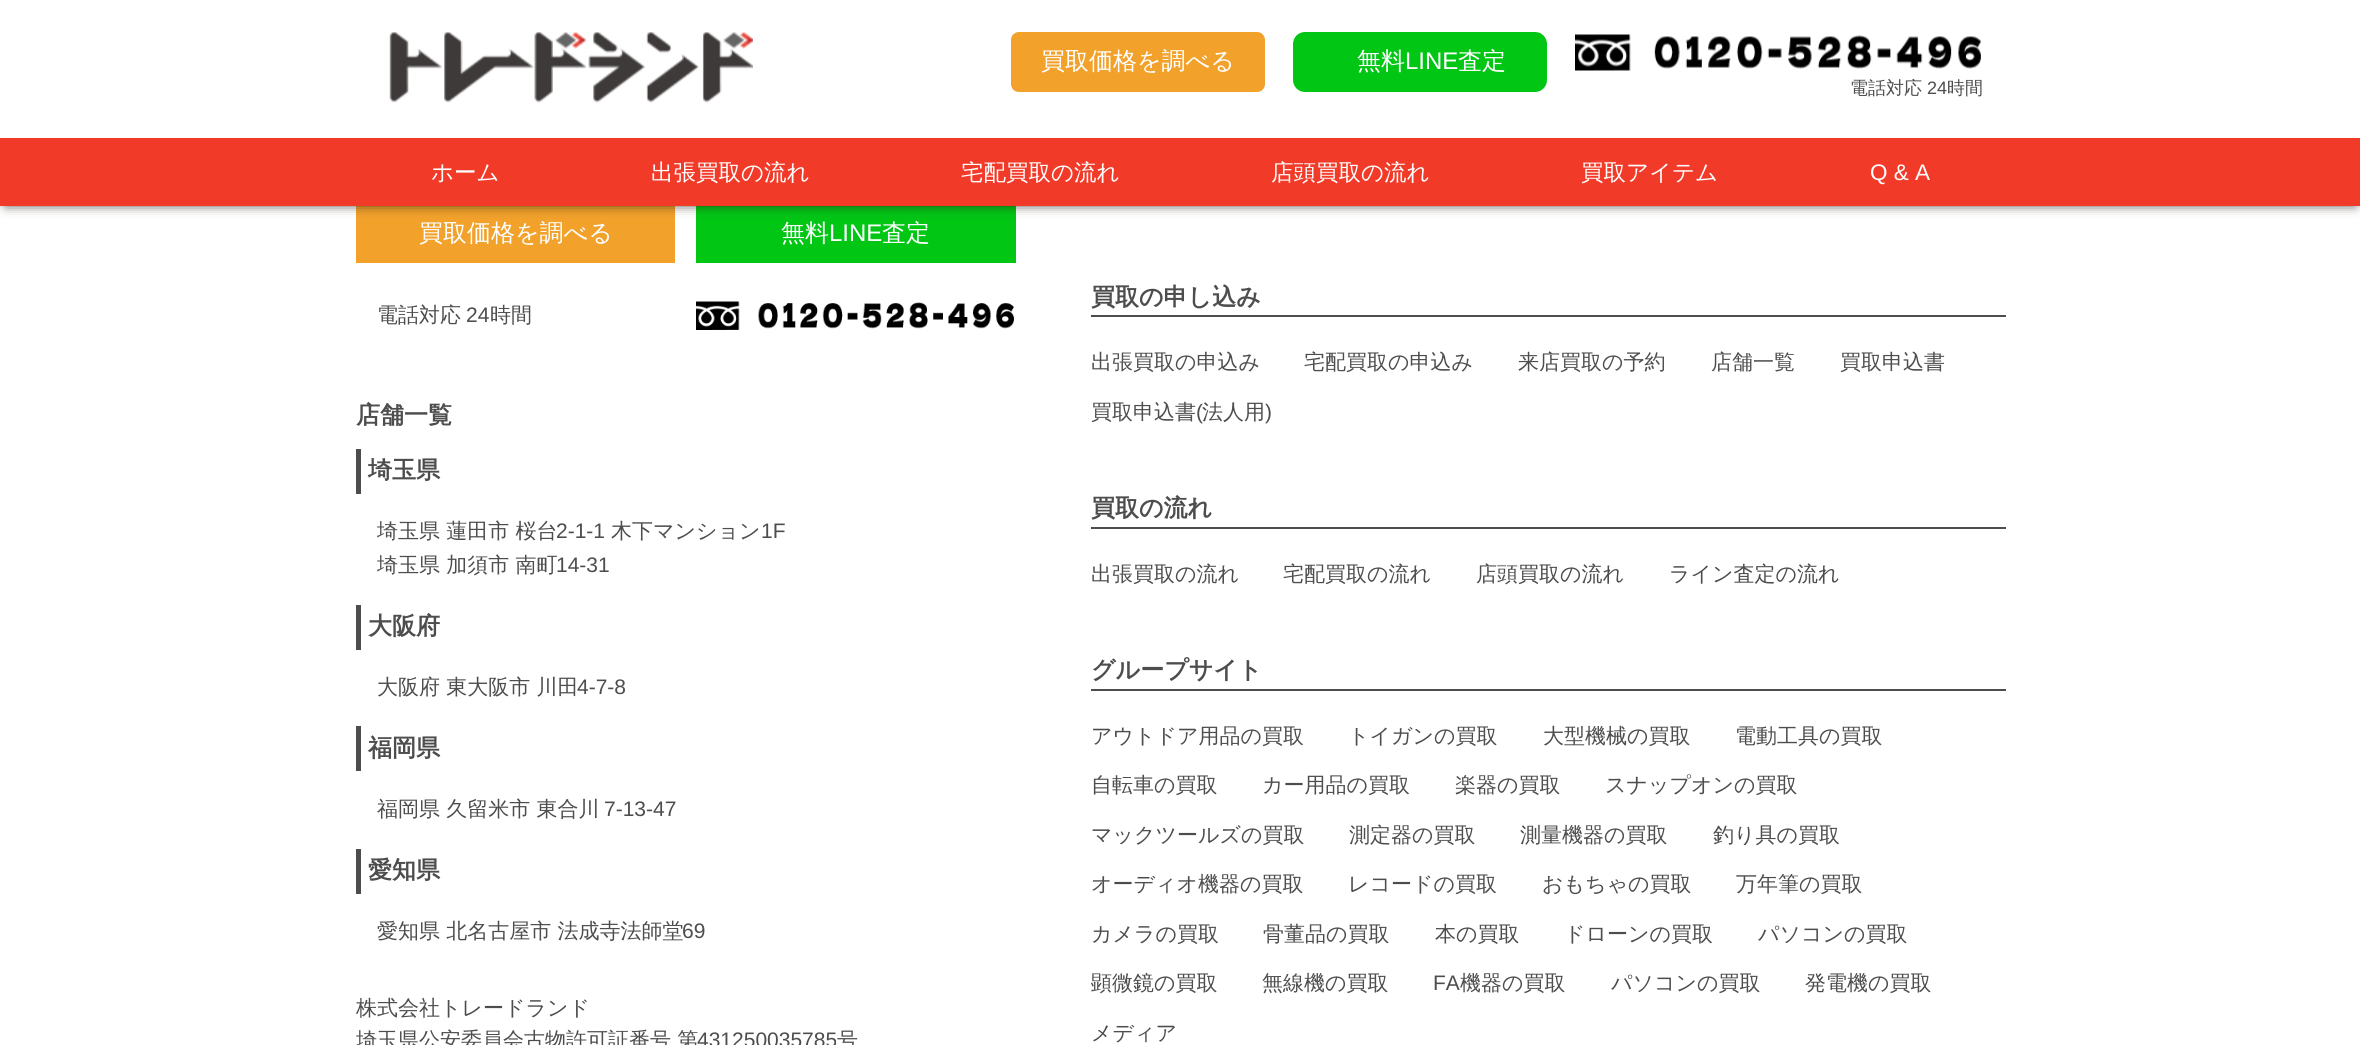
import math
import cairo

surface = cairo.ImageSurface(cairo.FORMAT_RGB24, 2360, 1045)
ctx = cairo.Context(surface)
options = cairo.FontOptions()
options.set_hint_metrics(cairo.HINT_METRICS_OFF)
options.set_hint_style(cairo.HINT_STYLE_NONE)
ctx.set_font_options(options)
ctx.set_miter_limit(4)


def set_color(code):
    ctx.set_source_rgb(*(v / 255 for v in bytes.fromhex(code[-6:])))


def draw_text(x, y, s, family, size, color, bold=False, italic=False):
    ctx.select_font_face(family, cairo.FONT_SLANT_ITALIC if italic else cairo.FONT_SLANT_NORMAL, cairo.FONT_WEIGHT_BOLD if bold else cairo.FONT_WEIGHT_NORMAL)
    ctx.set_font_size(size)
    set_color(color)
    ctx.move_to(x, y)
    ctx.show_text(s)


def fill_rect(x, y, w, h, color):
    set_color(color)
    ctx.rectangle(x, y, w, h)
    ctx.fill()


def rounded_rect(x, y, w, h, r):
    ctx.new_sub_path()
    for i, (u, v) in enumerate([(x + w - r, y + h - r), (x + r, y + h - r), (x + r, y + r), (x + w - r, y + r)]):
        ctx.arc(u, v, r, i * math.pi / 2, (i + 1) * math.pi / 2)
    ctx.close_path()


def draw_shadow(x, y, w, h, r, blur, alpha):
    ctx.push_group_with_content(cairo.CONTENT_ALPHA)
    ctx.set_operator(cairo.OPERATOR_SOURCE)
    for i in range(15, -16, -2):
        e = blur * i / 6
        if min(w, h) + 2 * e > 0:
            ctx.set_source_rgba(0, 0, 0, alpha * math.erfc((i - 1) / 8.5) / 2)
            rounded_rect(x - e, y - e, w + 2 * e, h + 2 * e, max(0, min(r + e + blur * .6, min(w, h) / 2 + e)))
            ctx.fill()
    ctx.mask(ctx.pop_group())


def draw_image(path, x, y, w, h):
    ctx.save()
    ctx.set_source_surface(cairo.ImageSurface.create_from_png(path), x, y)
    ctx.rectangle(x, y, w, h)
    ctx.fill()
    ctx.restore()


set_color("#ffffff")
ctx.paint()
fill_rect(356, 206, 319, 57, "#f2a12b")
fill_rect(696, 206, 320, 57, "#01c614")
set_color("#28221b")
draw_shadow(6, 11, 2349, 193, 0, 6, 1)
fill_rect(0, 0, 2360, 138, "#ffffff")
draw_image("assets/img1.png", 389, 32, 364, 71)
set_color("#f2a12b")
rounded_rect(1012, 33, 252, 58, 7)
ctx.fill_preserve()
ctx.stroke()
draw_text(1041, 69, "買取価格を調べる", "WenQuanYi Zen Hei Medium", 24, "#ffffff")
set_color("#01c614")
rounded_rect(1294, 33, 252, 58, 11)
ctx.fill_preserve()
ctx.stroke()
draw_text(1357, 69, "無料", "WenQuanYi Zen Hei Medium", 24, "#ffffff")
draw_text(1405, 69, "LINE", "Liberation Sans", 24, "#ffffff")
draw_text(1458, 69, "査定", "WenQuanYi Zen Hei Medium", 24, "#ffffff")
draw_image("assets/img2.png", 1575, 34, 406, 37)
draw_text(1850, 94, "電話対応", "WenQuanYi Zen Hei Medium", 18, "#4d4d4d")
draw_text(1927, 94, "24", "Liberation Sans", 18, "#4d4d4d")
draw_text(1947, 94, "時間", "WenQuanYi Zen Hei Medium", 18, "#4d4d4d")
fill_rect(0, 138, 2360, 68, "#f23a29")
draw_text(431, 180, "ホーム", "WenQuanYi Zen Hei Medium", 22.5, "#ffffff")
draw_text(651, 180, "出張買取の流れ", "WenQuanYi Zen Hei Medium", 22.5, "#ffffff")
draw_text(961, 180, "宅配買取の流れ", "WenQuanYi Zen Hei Medium", 22.5, "#ffffff")
draw_text(1271, 180, "店頭買取の流れ", "WenQuanYi Zen Hei Medium", 22.5, "#ffffff")
draw_text(1581, 180, "買取アイテム", "WenQuanYi Zen Hei Medium", 22.5, "#ffffff")
draw_text(1870, 180, "Q & A", "Liberation Sans", 22.5, "#ffffff")
draw_text(419, 241, "買取価格を調べる", "WenQuanYi Zen Hei Medium", 24, "#ffffff")
draw_text(781, 241, "無料", "WenQuanYi Zen Hei Medium", 24, "#ffffff")
draw_text(829, 241, "LINE", "Liberation Sans", 24, "#ffffff")
draw_text(882, 241, "査定", "WenQuanYi Zen Hei Medium", 24, "#ffffff")
draw_text(377, 322, "電話対応", "WenQuanYi Zen Hei Medium", 21, "#4d4d4d")
draw_text(466, 322, "24", "Liberation Sans", 21, "#4d4d4d")
draw_text(490, 322, "時間", "WenQuanYi Zen Hei Medium", 21, "#4d4d4d")
draw_image("assets/img3.png", 696, 301, 318, 29)
draw_text(356, 423, "店舗一覧", "WenQuanYi Zen Hei", 24, "#4d4d4d", bold=True)
fill_rect(356, 449, 5, 45, "#4d4d4d")
draw_text(368, 478, "埼玉県", "WenQuanYi Zen Hei", 24, "#4d4d4d", bold=True)
draw_text(377, 538, "埼玉県 蓮田市 桜台", "WenQuanYi Zen Hei Medium", 21, "#4d4d4d")
draw_text(556, 538, "2-1-1", "Liberation Sans", 21, "#4d4d4d")
draw_text(611, 538, "木下マンション", "WenQuanYi Zen Hei Medium", 21, "#4d4d4d")
draw_text(761, 538, "1F", "Liberation Sans", 21, "#4d4d4d")
draw_text(377, 572, "埼玉県 加須市 南町", "WenQuanYi Zen Hei Medium", 21, "#4d4d4d")
draw_text(556, 572, "14-31", "Liberation Sans", 21, "#4d4d4d")
fill_rect(356, 605, 5, 45, "#4d4d4d")
draw_text(368, 634, "大阪府", "WenQuanYi Zen Hei", 24, "#4d4d4d", bold=True)
draw_text(377, 694, "大阪府 東大阪市 川田", "WenQuanYi Zen Hei Medium", 21, "#4d4d4d")
draw_text(577, 694, "4-7-8", "Liberation Sans", 21, "#4d4d4d")
fill_rect(356, 726, 5, 45, "#4d4d4d")
draw_text(368, 756, "福岡県", "WenQuanYi Zen Hei", 24, "#4d4d4d", bold=True)
draw_text(377, 816, "福岡県 久留米市 東合川", "WenQuanYi Zen Hei Medium", 21, "#4d4d4d")
draw_text(604, 816, "7-13-47", "Liberation Sans", 21, "#4d4d4d")
fill_rect(356, 849, 5, 45, "#4d4d4d")
draw_text(368, 878, "愛知県", "WenQuanYi Zen Hei", 24, "#4d4d4d", bold=True)
draw_text(377, 938, "愛知県 北名古屋市 法成寺法師堂", "WenQuanYi Zen Hei Medium", 21, "#4d4d4d")
draw_text(682, 938, "69", "Liberation Sans", 21, "#4d4d4d")
draw_text(356, 1015, "株式会社トレードランド", "WenQuanYi Zen Hei Medium", 21, "#4d4d4d")
draw_text(356, 1047, "埼玉県公安委員会古物許可証番号 第", "WenQuanYi Zen Hei Medium", 21, "#4d4d4d")
draw_text(697, 1047, "431250035785", "Liberation Sans", 21, "#4d4d4d")
draw_text(837, 1047, "号", "WenQuanYi Zen Hei Medium", 21, "#4d4d4d")
fill_rect(1091, 315, 915, 2, "#4d4d4d")
draw_text(1091, 305, "買取の申し込み", "WenQuanYi Zen Hei", 24, "#4d4d4d", bold=True)
draw_text(1091, 369, "出張買取の申込み", "WenQuanYi Zen Hei Medium", 21, "#4d4d4d")
draw_text(1304, 369, "宅配買取の申込み", "WenQuanYi Zen Hei Medium", 21, "#4d4d4d")
draw_text(1518, 369, "来店買取の予約", "WenQuanYi Zen Hei Medium", 21, "#4d4d4d")
draw_text(1711, 369, "店舗一覧", "WenQuanYi Zen Hei Medium", 21, "#4d4d4d")
draw_text(1840, 369, "買取申込書", "WenQuanYi Zen Hei Medium", 21, "#4d4d4d")
draw_text(1091, 419, "買取申込書", "WenQuanYi Zen Hei Medium", 21, "#4d4d4d")
draw_text(1196, 419, "(", "Liberation Sans", 21, "#4d4d4d")
draw_text(1202, 419, "法人用", "WenQuanYi Zen Hei Medium", 21, "#4d4d4d")
draw_text(1265, 419, ")", "Liberation Sans", 21, "#4d4d4d")
fill_rect(1091, 527, 915, 2, "#4d4d4d")
draw_text(1091, 516, "買取の流れ", "WenQuanYi Zen Hei", 24, "#4d4d4d", bold=True)
draw_text(1091, 581, "出張買取の流れ", "WenQuanYi Zen Hei Medium", 21, "#4d4d4d")
draw_text(1283, 581, "宅配買取の流れ", "WenQuanYi Zen Hei Medium", 21, "#4d4d4d")
draw_text(1476, 581, "店頭買取の流れ", "WenQuanYi Zen Hei Medium", 21, "#4d4d4d")
draw_text(1669, 581, "ライン査定の流れ", "WenQuanYi Zen Hei Medium", 21, "#4d4d4d")
fill_rect(1091, 689, 915, 2, "#4d4d4d")
draw_text(1091, 678, "グループサイト", "WenQuanYi Zen Hei", 24, "#4d4d4d", bold=True)
draw_text(1091, 743, "アウトドア用品の買取", "WenQuanYi Zen Hei Medium", 21, "#4d4d4d")
draw_text(1348, 743, "トイガンの買取", "WenQuanYi Zen Hei Medium", 21, "#4d4d4d")
draw_text(1543, 743, "大型機械の買取", "WenQuanYi Zen Hei Medium", 21, "#4d4d4d")
draw_text(1735, 743, "電動工具の買取", "WenQuanYi Zen Hei Medium", 21, "#4d4d4d")
draw_text(1091, 792, "自転車の買取", "WenQuanYi Zen Hei Medium", 21, "#4d4d4d")
draw_text(1262, 792, "カー用品の買取", "WenQuanYi Zen Hei Medium", 21, "#4d4d4d")
draw_text(1455, 792, "楽器の買取", "WenQuanYi Zen Hei Medium", 21, "#4d4d4d")
draw_text(1605, 792, "スナップオンの買取", "WenQuanYi Zen Hei Medium", 21, "#4d4d4d")
draw_text(1091, 842, "マックツールズの買取", "WenQuanYi Zen Hei Medium", 21, "#4d4d4d")
draw_text(1349, 842, "測定器の買取", "WenQuanYi Zen Hei Medium", 21, "#4d4d4d")
draw_text(1520, 842, "測量機器の買取", "WenQuanYi Zen Hei Medium", 21, "#4d4d4d")
draw_text(1713, 842, "釣り具の買取", "WenQuanYi Zen Hei Medium", 21, "#4d4d4d")
draw_text(1091, 891, "オーディオ機器の買取", "WenQuanYi Zen Hei Medium", 21, "#4d4d4d")
draw_text(1348, 891, "レコードの買取", "WenQuanYi Zen Hei Medium", 21, "#4d4d4d")
draw_text(1542, 891, "おもちゃの買取", "WenQuanYi Zen Hei Medium", 21, "#4d4d4d")
draw_text(1736, 891, "万年筆の買取", "WenQuanYi Zen Hei Medium", 21, "#4d4d4d")
draw_text(1091, 941, "カメラの買取", "WenQuanYi Zen Hei Medium", 21, "#4d4d4d")
draw_text(1263, 941, "骨董品の買取", "WenQuanYi Zen Hei Medium", 21, "#4d4d4d")
draw_text(1435, 941, "本の買取", "WenQuanYi Zen Hei Medium", 21, "#4d4d4d")
draw_text(1564, 941, "ドローンの買取", "WenQuanYi Zen Hei Medium", 21, "#4d4d4d")
draw_text(1758, 941, "パソコンの買取", "WenQuanYi Zen Hei Medium", 21, "#4d4d4d")
draw_text(1091, 990, "顕微鏡の買取", "WenQuanYi Zen Hei Medium", 21, "#4d4d4d")
draw_text(1262, 990, "無線機の買取", "WenQuanYi Zen Hei Medium", 21, "#4d4d4d")
draw_text(1433, 990, "FA", "Liberation Sans", 21, "#4d4d4d")
draw_text(1460, 990, "機器の買取", "WenQuanYi Zen Hei Medium", 21, "#4d4d4d")
draw_text(1611, 990, "パソコンの買取", "WenQuanYi Zen Hei Medium", 21, "#4d4d4d")
draw_text(1805, 990, "発電機の買取", "WenQuanYi Zen Hei Medium", 21, "#4d4d4d")
draw_text(1091, 1040, "メディア", "WenQuanYi Zen Hei Medium", 21, "#4d4d4d")
surface.write_to_png("output.png")
